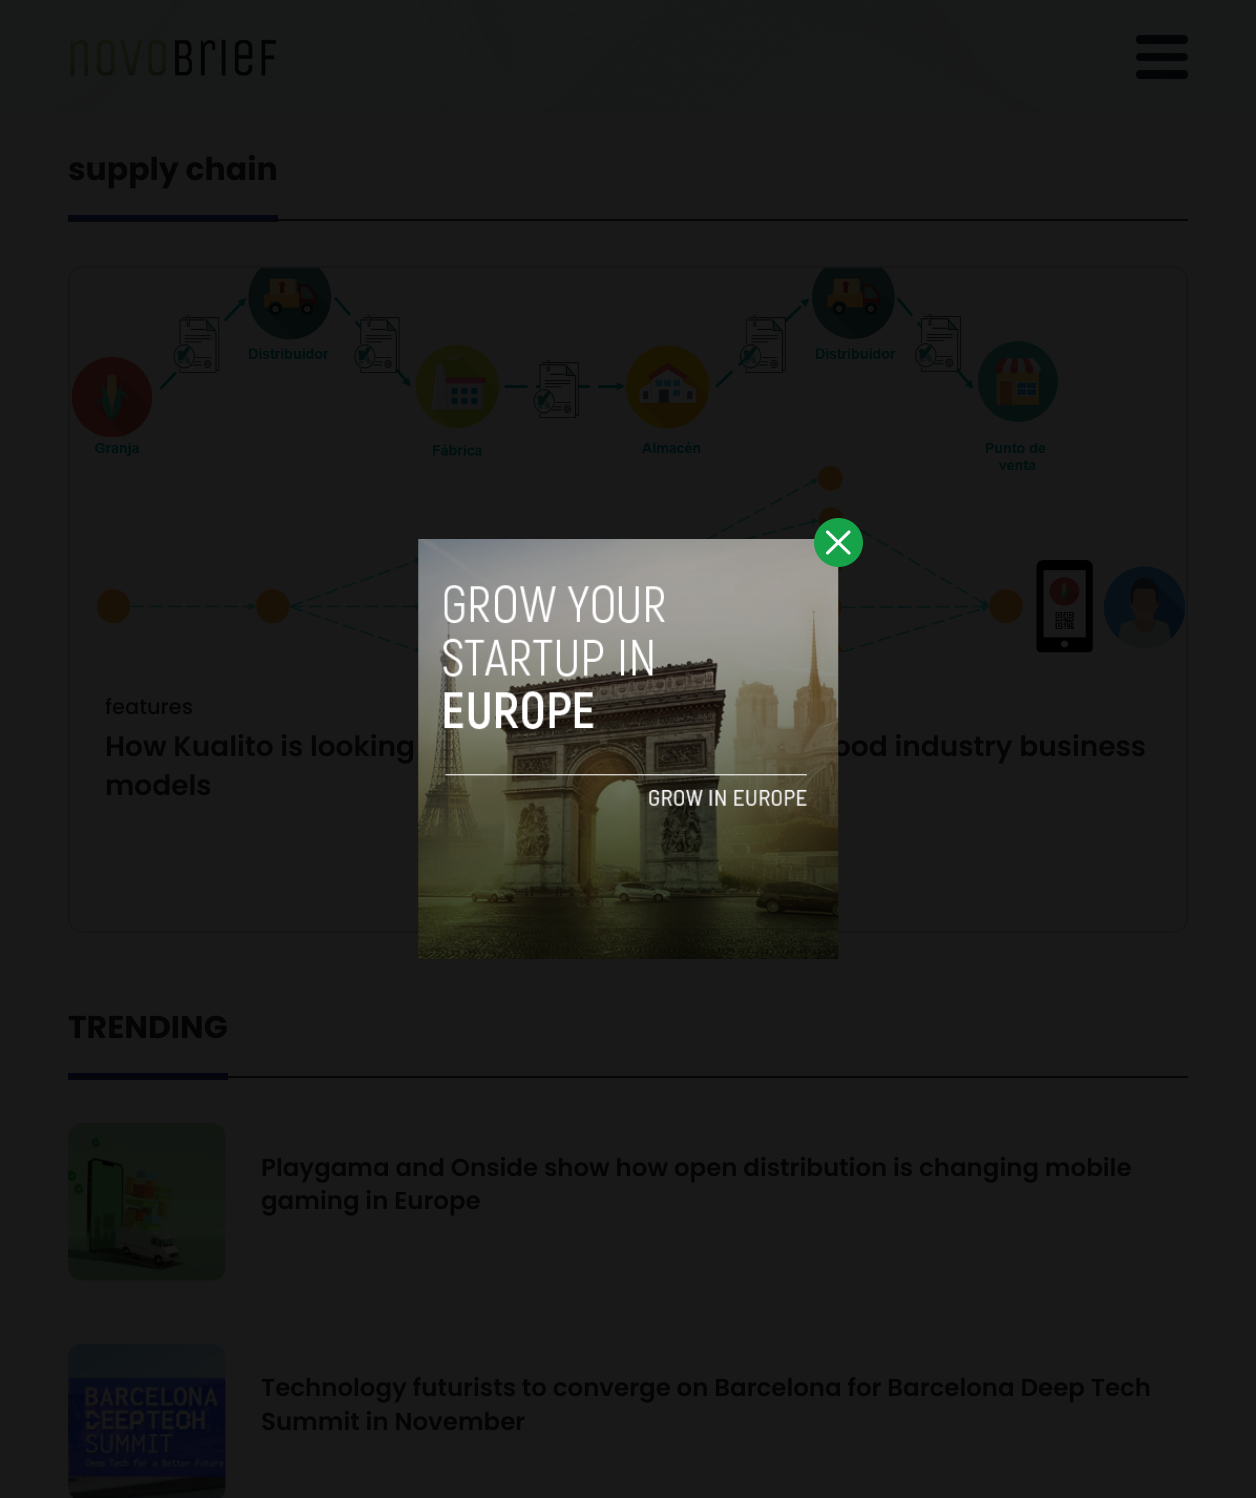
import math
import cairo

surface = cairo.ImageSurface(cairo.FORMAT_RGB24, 1256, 1498)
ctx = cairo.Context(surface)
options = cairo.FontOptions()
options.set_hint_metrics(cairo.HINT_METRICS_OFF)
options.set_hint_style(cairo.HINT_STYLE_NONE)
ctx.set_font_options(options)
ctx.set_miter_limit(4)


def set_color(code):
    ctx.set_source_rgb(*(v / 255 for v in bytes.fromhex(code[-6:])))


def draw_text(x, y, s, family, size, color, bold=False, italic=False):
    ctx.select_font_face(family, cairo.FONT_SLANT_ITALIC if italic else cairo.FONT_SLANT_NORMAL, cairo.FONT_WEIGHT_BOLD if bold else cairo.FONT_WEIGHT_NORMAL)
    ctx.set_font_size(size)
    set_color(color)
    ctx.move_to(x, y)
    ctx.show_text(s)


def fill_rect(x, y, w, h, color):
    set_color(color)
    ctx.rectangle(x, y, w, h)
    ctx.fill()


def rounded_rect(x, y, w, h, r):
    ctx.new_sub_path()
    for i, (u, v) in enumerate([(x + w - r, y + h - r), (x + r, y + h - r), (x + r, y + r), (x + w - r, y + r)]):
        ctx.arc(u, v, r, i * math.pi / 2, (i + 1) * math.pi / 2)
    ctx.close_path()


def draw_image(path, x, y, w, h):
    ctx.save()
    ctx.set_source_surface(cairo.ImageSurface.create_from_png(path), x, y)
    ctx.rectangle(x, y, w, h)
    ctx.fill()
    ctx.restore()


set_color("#191919")
ctx.paint()
draw_image("assets/img1.png", 0, 0, 1256, 114)
draw_image("assets/img2.png", 70, 39, 206, 37)
set_color("#030405")
rounded_rect(1136, 35, 52, 9, 4)
ctx.fill()
rounded_rect(1136, 53, 52, 8, 4)
ctx.fill()
rounded_rect(1136, 70, 52, 9, 4)
ctx.fill()
fill_rect(68, 215, 210, 7, "#030611")
draw_text(68, 180, "supply chain", "Poppins", 31.5, "#040404", bold=True)
fill_rect(68, 219, 1120, 2, "#060607")
rounded_rect(69, 267, 1118, 665, 13)
set_color("#151516")
ctx.stroke()
draw_image("assets/img3.png", 71, 267, 1115, 386)
draw_text(105, 714, "features", "Poppins Medium", 21, "#040404")
draw_text(105, 756, "How Kualito is looking", "Poppins SemiBold", 28, "#040404")
draw_text(833, 756, "ood industry business", "Poppins SemiBold", 28, "#040404")
draw_text(105, 795, "models", "Poppins SemiBold", 28, "#040404")
fill_rect(68, 1073, 160, 7, "#030611")
draw_text(68, 1038, "TRENDING", "Poppins", 31.5, "#040404", bold=True)
fill_rect(68, 1076, 1120, 2, "#060607")
draw_image("assets/img4.png", 68, 1123, 158, 159)
draw_text(261, 1176, "Playgama and Onside show how open distribution is changing mobile", "Poppins SemiBold", 24.5, "#040404")
draw_text(261, 1209, "gaming in Europe", "Poppins SemiBold", 24.5, "#040404")
draw_image("assets/img5.png", 68, 1343, 158, 155)
draw_text(261, 1396, "Technology futurists to converge on Barcelona for Barcelona Deep Tech", "Poppins SemiBold", 24.5, "#040404")
draw_text(261, 1430, "Summit in November", "Poppins SemiBold", 24.5, "#040404")
draw_image("assets/img6.png", 418, 539, 421, 420)
set_color("#16a34a")
ctx.arc(838.5, 542.5, 24.5, 0, 2 * math.pi)
ctx.fill()
ctx.new_path()
ctx.move_to(849, 553)
ctx.line_to(827.5, 532)
ctx.move_to(849, 532)
ctx.line_to(827.5, 553)
set_color("#ffffff")
ctx.set_line_width(3.1)
ctx.set_line_cap(cairo.LINE_CAP_ROUND)
ctx.set_line_join(cairo.LINE_JOIN_ROUND)
ctx.stroke()
surface.write_to_png("output.png")
